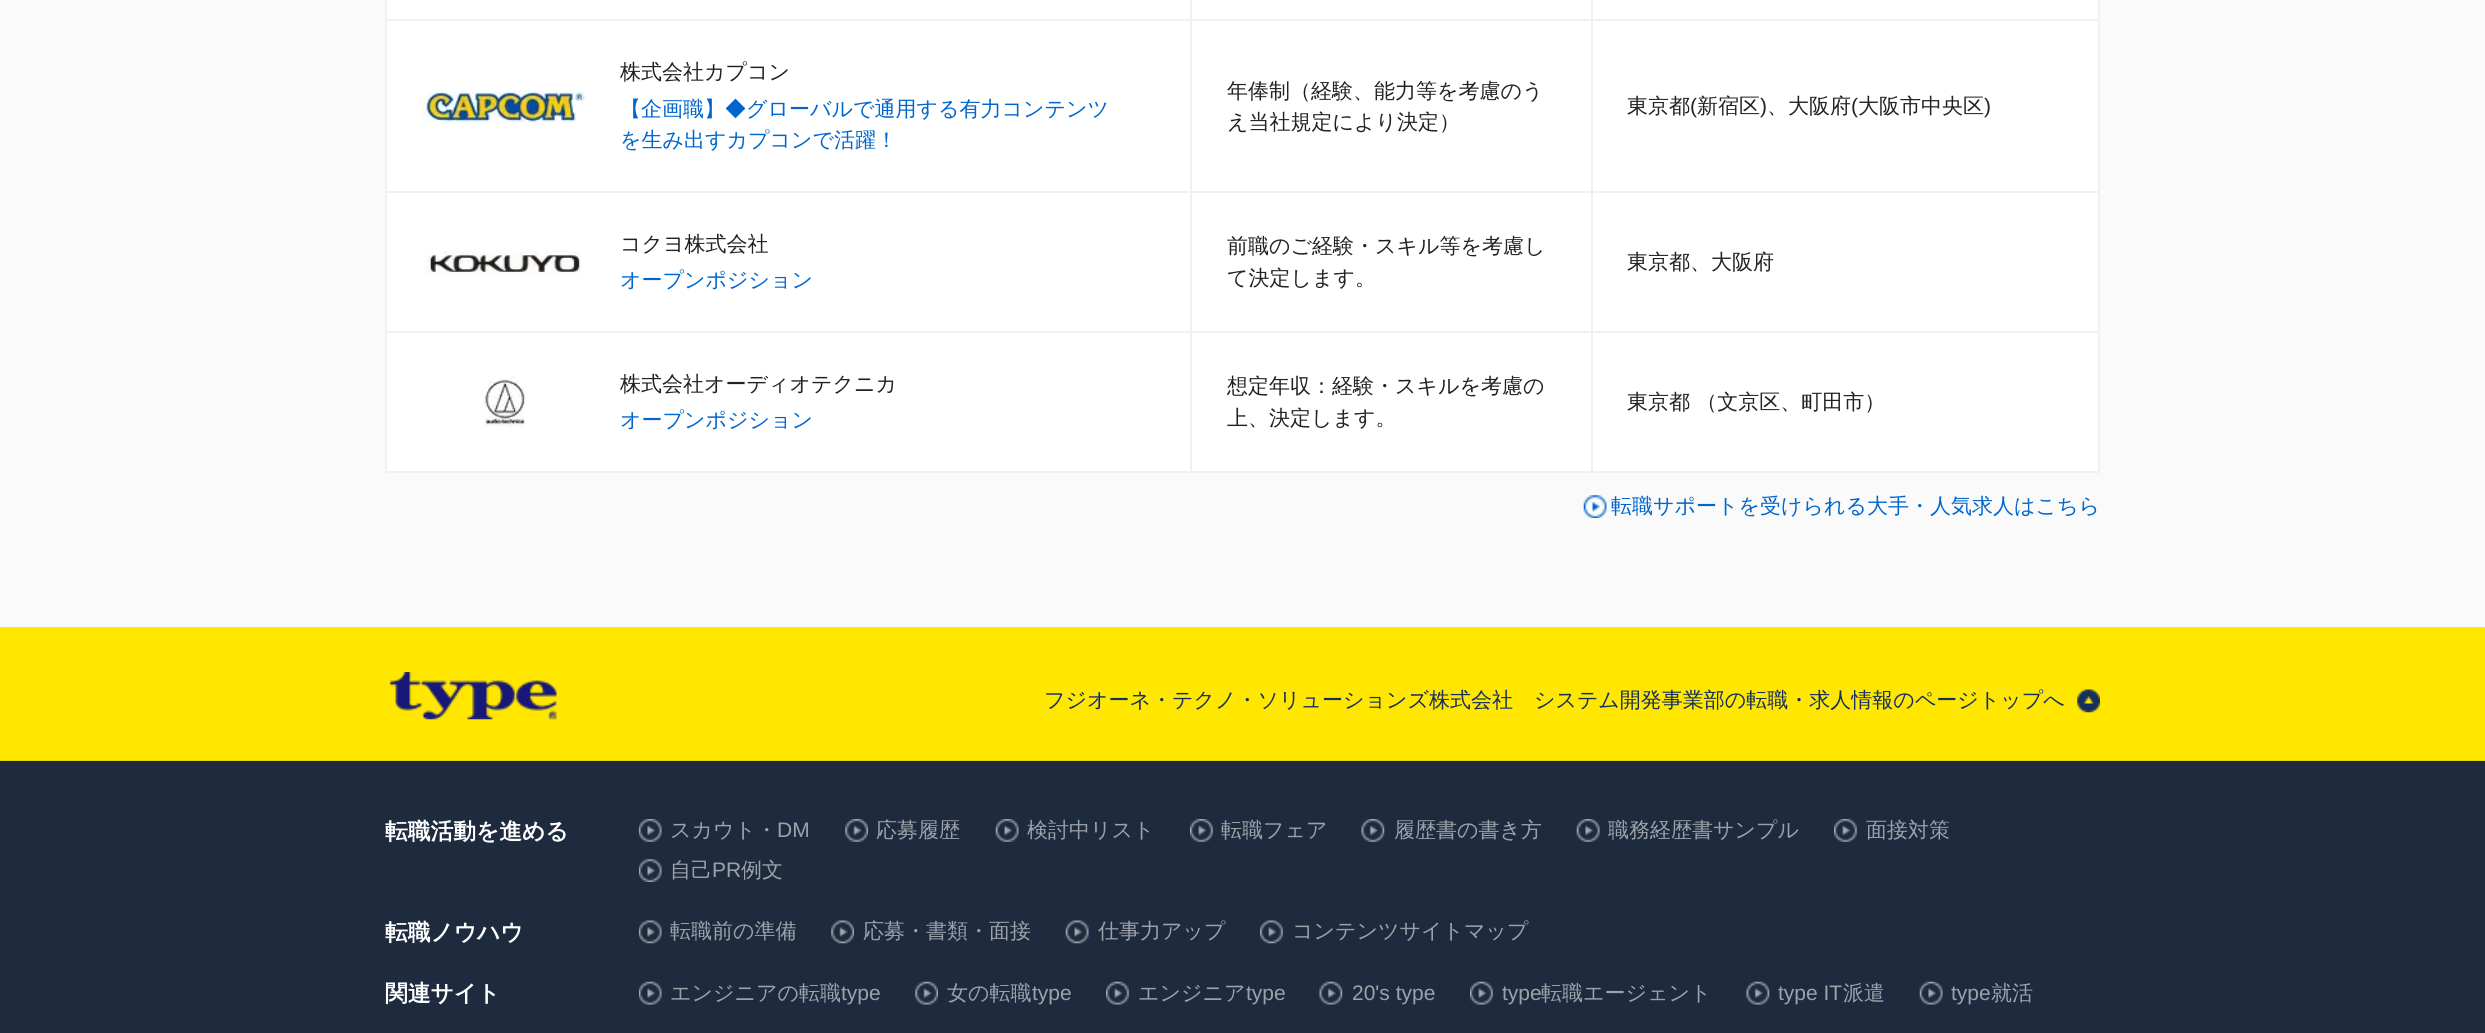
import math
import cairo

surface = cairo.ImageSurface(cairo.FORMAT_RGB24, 2485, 1033)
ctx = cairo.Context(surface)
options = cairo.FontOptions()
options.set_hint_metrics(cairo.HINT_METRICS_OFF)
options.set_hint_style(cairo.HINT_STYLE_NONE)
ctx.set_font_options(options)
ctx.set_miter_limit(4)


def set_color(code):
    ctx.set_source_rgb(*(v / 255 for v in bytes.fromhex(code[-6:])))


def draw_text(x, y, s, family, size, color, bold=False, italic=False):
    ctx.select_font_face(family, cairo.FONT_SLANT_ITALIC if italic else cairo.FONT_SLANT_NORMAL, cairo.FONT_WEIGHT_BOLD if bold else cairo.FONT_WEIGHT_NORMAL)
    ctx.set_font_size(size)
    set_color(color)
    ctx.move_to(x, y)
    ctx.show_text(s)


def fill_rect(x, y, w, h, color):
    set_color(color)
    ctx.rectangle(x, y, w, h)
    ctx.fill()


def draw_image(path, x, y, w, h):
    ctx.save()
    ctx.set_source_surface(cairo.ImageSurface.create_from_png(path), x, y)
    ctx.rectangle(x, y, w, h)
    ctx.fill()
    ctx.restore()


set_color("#fafafa")
ctx.paint()
fill_rect(387, 0, 803, 19, "#ffffff")
fill_rect(1192, 0, 399, 19, "#ffffff")
fill_rect(1591, 19, 509, 2, "#f1f1f1")
fill_rect(1591, 191, 509, 2, "#f1f1f1")
fill_rect(1591, 331, 509, 2, "#f1f1f1")
fill_rect(2098, 331, 2, 142, "#f1f1f1")
fill_rect(1591, 471, 509, 2, "#f1f1f1")
fill_rect(1591, 331, 2, 142, "#f1f1f1")
fill_rect(1190, 331, 403, 2, "#f1f1f1")
fill_rect(1591, 191, 2, 142, "#f1f1f1")
fill_rect(1190, 191, 403, 2, "#f1f1f1")
fill_rect(1591, 19, 2, 174, "#f1f1f1")
fill_rect(1190, 19, 403, 2, "#f1f1f1")
fill_rect(1190, 471, 403, 2, "#f1f1f1")
fill_rect(1190, 331, 2, 142, "#f1f1f1")
fill_rect(385, 331, 807, 2, "#f1f1f1")
fill_rect(1190, 191, 2, 142, "#f1f1f1")
fill_rect(385, 191, 807, 2, "#f1f1f1")
fill_rect(1190, 19, 2, 174, "#f1f1f1")
fill_rect(385, 19, 807, 2, "#f1f1f1")
fill_rect(1190, 0, 2, 21, "#f1f1f1")
fill_rect(1593, 0, 505, 19, "#ffffff")
fill_rect(1591, 0, 2, 21, "#f1f1f1")
fill_rect(387, 21, 803, 170, "#ffffff")
fill_rect(385, 471, 807, 2, "#f1f1f1")
fill_rect(385, 331, 2, 142, "#f1f1f1")
fill_rect(385, 191, 2, 142, "#f1f1f1")
fill_rect(385, 0, 2, 193, "#f1f1f1")
draw_image("assets/img1.png", 421, 90, 165, 33)
draw_text(620, 79, "株式会社カプコン", "WenQuanYi Zen Hei Medium", 21, "#222222")
draw_text(620, 116, "【企画職】◆グローバルで通用する有力コンテンツ", "WenQuanYi Zen Hei Medium", 21, "#0066cc")
draw_text(620, 147, "を生み出すカプコンで活躍！", "WenQuanYi Zen Hei Medium", 21, "#0066cc")
fill_rect(1192, 21, 399, 170, "#ffffff")
draw_text(1227, 98, "年俸制（経験、能力等を考慮のう", "WenQuanYi Zen Hei Medium", 21, "#222222")
draw_text(1227, 129, "え当社規定により決定）", "WenQuanYi Zen Hei Medium", 21, "#222222")
fill_rect(1593, 21, 505, 170, "#ffffff")
fill_rect(2098, 191, 2, 142, "#f1f1f1")
fill_rect(2098, 0, 2, 193, "#f1f1f1")
draw_text(1627, 113, "東京都", "WenQuanYi Zen Hei Medium", 21, "#222222")
draw_text(1690, 113, "(", "Liberation Sans", 21, "#222222")
draw_text(1697, 113, "新宿区", "WenQuanYi Zen Hei Medium", 21, "#222222")
draw_text(1760, 113, ")", "Liberation Sans", 21, "#222222")
draw_text(1767, 113, "、大阪府", "WenQuanYi Zen Hei Medium", 21, "#222222")
draw_text(1851, 113, "(", "Liberation Sans", 21, "#222222")
draw_text(1858, 113, "大阪市中央区", "WenQuanYi Zen Hei Medium", 21, "#222222")
draw_text(1984, 113, ")", "Liberation Sans", 21, "#222222")
fill_rect(387, 193, 803, 138, "#ffffff")
draw_image("assets/img2.png", 426, 251, 155, 24)
draw_text(620, 251, "コクヨ株式会社", "WenQuanYi Zen Hei Medium", 21, "#222222")
draw_text(620, 287, "オープンポジション", "WenQuanYi Zen Hei Medium", 21, "#0066cc")
fill_rect(1192, 193, 399, 138, "#ffffff")
draw_text(1227, 253, "前職のご経験・スキル等を考慮し", "WenQuanYi Zen Hei Medium", 21, "#222222")
draw_text(1227, 285, "て決定します。", "WenQuanYi Zen Hei Medium", 21, "#222222")
fill_rect(1593, 193, 505, 138, "#ffffff")
draw_text(1627, 269, "東京都、大阪府", "WenQuanYi Zen Hei Medium", 21, "#222222")
fill_rect(387, 333, 803, 138, "#ffffff")
draw_image("assets/img3.png", 483, 376, 42, 51)
draw_text(620, 391, "株式会社オーディオテクニカ", "WenQuanYi Zen Hei Medium", 21, "#222222")
draw_text(620, 427, "オープンポジション", "WenQuanYi Zen Hei Medium", 21, "#0066cc")
fill_rect(1192, 333, 399, 138, "#ffffff")
draw_text(1227, 393, "想定年収：経験・スキルを考慮の", "WenQuanYi Zen Hei Medium", 21, "#222222")
draw_text(1227, 425, "上、決定します。", "WenQuanYi Zen Hei Medium", 21, "#222222")
fill_rect(1593, 333, 505, 138, "#ffffff")
draw_text(1627, 409, "東京都 （文京区、町田市）", "WenQuanYi Zen Hei Medium", 21, "#222222")
draw_image("assets/img4.png", 1583, 495, 24, 23)
draw_text(1611, 513, "転職サポートを受けられる大手・人気求人はこちら", "WenQuanYi Zen Hei Medium", 21, "#0066cc")
fill_rect(0, 627, 2485, 133, "#ffe700")
fill_rect(0, 760, 2485, 1, "#ebd500")
draw_image("assets/img5.png", 389, 672, 168, 48)
draw_image("assets/img6.png", 2077, 689, 23, 24)
draw_text(1044, 707, "フジオーネ・テクノ・ソリューションズ株式会社　システム開発事業部の転職・求人情報のページトップへ", "WenQuanYi Zen Hei Medium", 21, "#15305c")
fill_rect(0, 761, 2485, 272, "#1e2b3f")
draw_text(385, 839, "転職活動を進める", "WenQuanYi Zen Hei", 22.75, "#ffffff", bold=True)
draw_image("assets/img7.png", 638, 819, 24, 23)
draw_text(670, 837, "スカウト・", "WenQuanYi Zen Hei Medium", 21, "#9ca2aa")
draw_text(777, 837, "DM", "Liberation Sans", 21, "#9ca2aa")
draw_image("assets/img8.png", 845, 819, 23, 23)
draw_text(876, 837, "応募履歴", "WenQuanYi Zen Hei Medium", 21, "#9ca2aa")
draw_image("assets/img9.png", 995, 819, 24, 23)
draw_text(1027, 837, "検討中リスト", "WenQuanYi Zen Hei Medium", 21, "#9ca2aa")
draw_image("assets/img10.png", 1190, 819, 23, 23)
draw_text(1221, 837, "転職フェア", "WenQuanYi Zen Hei Medium", 21, "#9ca2aa")
draw_image("assets/img11.png", 1361, 819, 24, 23)
draw_text(1394, 837, "履歴書の書き方", "WenQuanYi Zen Hei Medium", 21, "#9ca2aa")
draw_image("assets/img12.png", 1576, 819, 24, 23)
draw_text(1608, 837, "職務経歴書サンプル", "WenQuanYi Zen Hei Medium", 21, "#9ca2aa")
draw_image("assets/img13.png", 1834, 819, 23, 23)
draw_text(1866, 837, "面接対策", "WenQuanYi Zen Hei Medium", 21, "#9ca2aa")
draw_image("assets/img14.png", 638, 859, 24, 23)
draw_text(670, 877, "自己", "WenQuanYi Zen Hei Medium", 21, "#9ca2aa")
draw_text(712, 877, "PR", "Liberation Sans", 21, "#9ca2aa")
draw_text(741, 877, "例文", "WenQuanYi Zen Hei Medium", 21, "#9ca2aa")
draw_text(385, 940, "転職ノウハウ", "WenQuanYi Zen Hei", 22.75, "#ffffff", bold=True)
draw_image("assets/img15.png", 638, 920, 24, 24)
draw_text(670, 938, "転職前の準備", "WenQuanYi Zen Hei Medium", 21, "#9ca2aa")
draw_image("assets/img16.png", 831, 920, 23, 24)
draw_text(863, 938, "応募・書類・面接", "WenQuanYi Zen Hei Medium", 21, "#9ca2aa")
draw_image("assets/img17.png", 1065, 920, 24, 24)
draw_text(1098, 938, "仕事力アップ", "WenQuanYi Zen Hei Medium", 21, "#9ca2aa")
draw_image("assets/img18.png", 1260, 920, 23, 24)
draw_text(1292, 938, "コンテンツサイトマップ", "WenQuanYi Zen Hei Medium", 21, "#9ca2aa")
draw_text(385, 1001, "関連サイト", "WenQuanYi Zen Hei", 22.75, "#ffffff", bold=True)
draw_image("assets/img19.png", 638, 981, 24, 24)
draw_text(670, 1000, "エンジニアの転職", "WenQuanYi Zen Hei Medium", 21, "#9ca2aa")
draw_text(841, 1000, "type", "Liberation Sans", 21, "#9ca2aa")
draw_image("assets/img20.png", 915, 981, 23, 24)
draw_text(947, 1000, "女の転職", "WenQuanYi Zen Hei Medium", 21, "#9ca2aa")
draw_text(1032, 1000, "type", "Liberation Sans", 21, "#9ca2aa")
draw_image("assets/img21.png", 1106, 981, 23, 24)
draw_text(1138, 1000, "エンジニア", "WenQuanYi Zen Hei Medium", 21, "#9ca2aa")
draw_text(1246, 1000, "type", "Liberation Sans", 21, "#9ca2aa")
draw_image("assets/img22.png", 1319, 981, 24, 24)
draw_text(1352, 1000, "20's type", "Liberation Sans", 21, "#9ca2aa")
draw_image("assets/img21.png", 1470, 981, 23, 24)
draw_text(1502, 1000, "type", "Liberation Sans", 21, "#9ca2aa")
draw_text(1541, 1000, "転職エージェント", "WenQuanYi Zen Hei Medium", 21, "#9ca2aa")
draw_image("assets/img23.png", 1746, 981, 24, 24)
draw_text(1778, 1000, "type IT", "Liberation Sans", 21, "#9ca2aa")
draw_text(1843, 1000, "派遣", "WenQuanYi Zen Hei Medium", 21, "#9ca2aa")
draw_image("assets/img24.png", 1919, 981, 24, 24)
draw_text(1951, 1000, "type", "Liberation Sans", 21, "#9ca2aa")
draw_text(1991, 1000, "就活", "WenQuanYi Zen Hei Medium", 21, "#9ca2aa")
surface.write_to_png("output.png")
